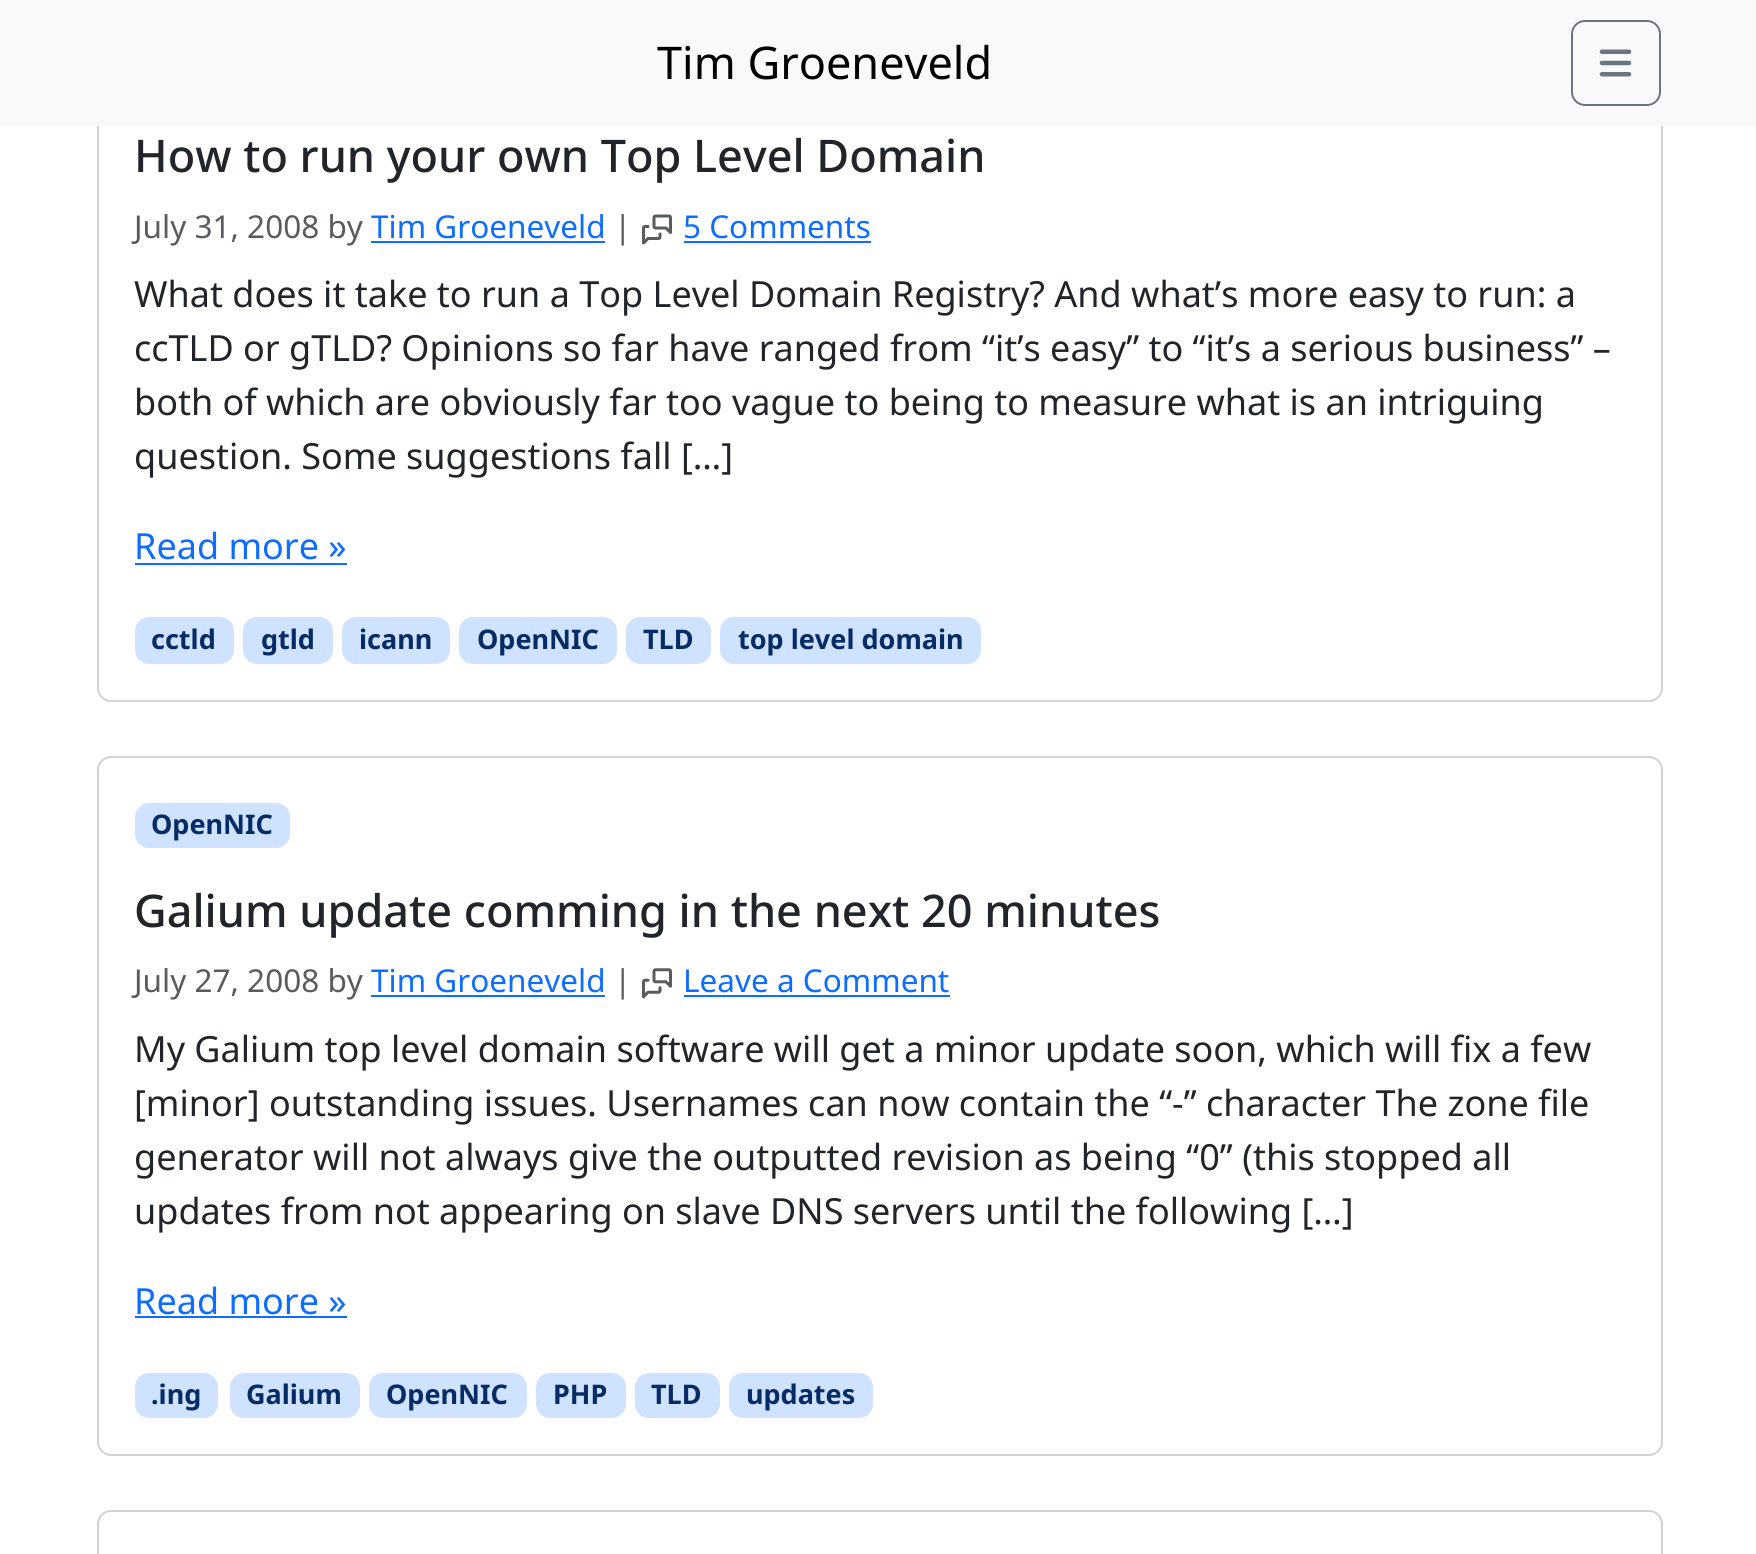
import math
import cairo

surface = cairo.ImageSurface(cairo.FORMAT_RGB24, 1756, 1554)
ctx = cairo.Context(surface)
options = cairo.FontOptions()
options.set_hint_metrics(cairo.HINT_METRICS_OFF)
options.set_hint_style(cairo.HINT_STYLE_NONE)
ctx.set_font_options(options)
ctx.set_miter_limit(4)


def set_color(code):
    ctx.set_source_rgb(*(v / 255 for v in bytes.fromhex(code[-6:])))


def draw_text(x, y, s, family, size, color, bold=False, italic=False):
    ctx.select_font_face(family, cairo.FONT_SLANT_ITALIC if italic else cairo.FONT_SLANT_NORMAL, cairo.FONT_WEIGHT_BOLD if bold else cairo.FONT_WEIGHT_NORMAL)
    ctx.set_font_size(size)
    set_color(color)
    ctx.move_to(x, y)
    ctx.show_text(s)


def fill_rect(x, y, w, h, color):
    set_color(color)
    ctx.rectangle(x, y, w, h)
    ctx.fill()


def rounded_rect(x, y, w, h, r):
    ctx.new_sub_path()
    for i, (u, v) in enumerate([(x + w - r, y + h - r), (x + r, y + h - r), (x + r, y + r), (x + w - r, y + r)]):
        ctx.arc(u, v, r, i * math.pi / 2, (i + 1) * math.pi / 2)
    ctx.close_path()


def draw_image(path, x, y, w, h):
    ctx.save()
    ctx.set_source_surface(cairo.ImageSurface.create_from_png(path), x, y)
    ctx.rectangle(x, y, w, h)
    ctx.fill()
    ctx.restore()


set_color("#ffffff")
ctx.paint()
rounded_rect(98, 1, 1564, 700, 13)
set_color("#d2d2d2")
ctx.stroke()
fill_rect(0, 0, 1756, 126, "#f8f9fa")
draw_text(657, 79, "Tim Groeneveld", "Noto Sans", 45, "#000000")
rounded_rect(1572, 21, 88, 84, 13)
set_color("#6c757d")
ctx.stroke()
draw_image("assets/img1.png", 1599, 49, 33, 28)
draw_text(134, 172, "How to run your own Top Level Domain", "Noto Sans Medium", 45, "#212529")
draw_text(134, 238, "July 31, 2008 by", "Noto Sans", 31.5, "#595c5f")
draw_text(371, 238, "Tim Groeneveld", "Noto Sans", 31.5, "#0d6efd")
fill_rect(371, 241, 234, 2, "#0d6efd")
draw_text(614, 238, "|", "Noto Sans", 31.5, "#595c5f")
draw_image("assets/img2.png", 642, 214, 30, 31)
draw_text(683, 238, "5 Comments", "Noto Sans", 31.5, "#0d6efd")
fill_rect(684, 241, 187, 2, "#0d6efd")
draw_text(134, 307, "What does it take to run a Top Level Domain Registry? And what’s more easy to run: a", "Noto Sans", 36, "#212529")
draw_text(134, 361, "ccTLD or gTLD? Opinions so far have ranged from “it’s easy” to “it’s a serious business” –", "Noto Sans", 36, "#212529")
draw_text(134, 415, "both of which are obviously far too vague to being to measure what is an intriguing", "Noto Sans", 36, "#212529")
draw_text(134, 469, "question. Some suggestions fall […]", "Noto Sans", 36, "#212529")
draw_text(134, 559, "Read more »", "Noto Sans", 36, "#0d6efd")
fill_rect(135, 563, 212, 2, "#0d6efd")
set_color("#cfe2ff")
rounded_rect(135, 617, 99, 47, 14)
ctx.fill()
draw_text(151, 649, "cctld", "Noto Sans", 27, "#052c65", bold=True)
set_color("#cfe2ff")
rounded_rect(243, 617, 90, 47, 14)
ctx.fill()
draw_text(261, 649, "gtld", "Noto Sans", 27, "#052c65", bold=True)
set_color("#cfe2ff")
rounded_rect(342, 617, 108, 47, 14)
ctx.fill()
draw_text(359, 649, "icann", "Noto Sans", 27, "#052c65", bold=True)
set_color("#cfe2ff")
rounded_rect(459, 617, 158, 47, 14)
ctx.fill()
draw_text(477, 649, "OpenNIC", "Noto Sans", 27, "#052c65", bold=True)
set_color("#cfe2ff")
rounded_rect(626, 617, 85, 47, 14)
ctx.fill()
draw_text(643, 649, "TLD", "Noto Sans", 27, "#052c65", bold=True)
set_color("#cfe2ff")
rounded_rect(720, 617, 261, 47, 14)
ctx.fill()
draw_text(738, 649, "top level domain", "Noto Sans", 27, "#052c65", bold=True)
rounded_rect(98, 757, 1564, 698, 13)
set_color("#d2d2d2")
ctx.stroke()
set_color("#cfe2ff")
rounded_rect(135, 803, 155, 45, 14)
ctx.fill()
draw_text(151, 834, "OpenNIC", "Noto Sans", 27, "#052c65", bold=True)
draw_text(134, 927, "Galium update comming in the next 20 minutes", "Noto Sans Medium", 45, "#212529")
draw_text(134, 992, "July 27, 2008 by", "Noto Sans", 31.5, "#595c5f")
draw_text(371, 992, "Tim Groeneveld", "Noto Sans", 31.5, "#0d6efd")
fill_rect(371, 995, 234, 2, "#0d6efd")
draw_text(614, 992, "|", "Noto Sans", 31.5, "#595c5f")
draw_image("assets/img3.png", 642, 968, 30, 31)
draw_text(683, 992, "Leave a Comment", "Noto Sans", 31.5, "#0d6efd")
fill_rect(684, 995, 266, 2, "#0d6efd")
draw_text(134, 1062, "My Galium top level domain software will get a minor update soon, which will fix a few", "Noto Sans", 36, "#212529")
draw_text(134, 1116, "[minor] outstanding issues. Usernames can now contain the “-” character The zone file", "Noto Sans", 36, "#212529")
draw_text(134, 1170, "generator will not always give the outputted revision as being “0” (this stopped all", "Noto Sans", 36, "#212529")
draw_text(134, 1224, "updates from not appearing on slave DNS servers until the following […]", "Noto Sans", 36, "#212529")
draw_text(134, 1314, "Read more »", "Noto Sans", 36, "#0d6efd")
fill_rect(135, 1316, 212, 2, "#0d6efd")
set_color("#cfe2ff")
rounded_rect(135, 1373, 83, 45, 14)
ctx.fill()
draw_text(151, 1404, ".ing", "Noto Sans", 27, "#052c65", bold=True)
set_color("#cfe2ff")
rounded_rect(230, 1373, 130, 45, 14)
ctx.fill()
draw_text(246, 1404, "Galium", "Noto Sans", 27, "#052c65", bold=True)
set_color("#cfe2ff")
rounded_rect(369, 1373, 158, 45, 14)
ctx.fill()
draw_text(386, 1404, "OpenNIC", "Noto Sans", 27, "#052c65", bold=True)
set_color("#cfe2ff")
rounded_rect(536, 1373, 90, 45, 14)
ctx.fill()
draw_text(553, 1404, "PHP", "Noto Sans", 27, "#052c65", bold=True)
set_color("#cfe2ff")
rounded_rect(635, 1373, 85, 45, 14)
ctx.fill()
draw_text(651, 1404, "TLD", "Noto Sans", 27, "#052c65", bold=True)
set_color("#cfe2ff")
rounded_rect(729, 1373, 144, 45, 14)
ctx.fill()
draw_text(746, 1404, "updates", "Noto Sans", 27, "#052c65", bold=True)
rounded_rect(98, 1511, 1564, 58, 13)
set_color("#d2d2d2")
ctx.stroke()
surface.write_to_png("output.png")
